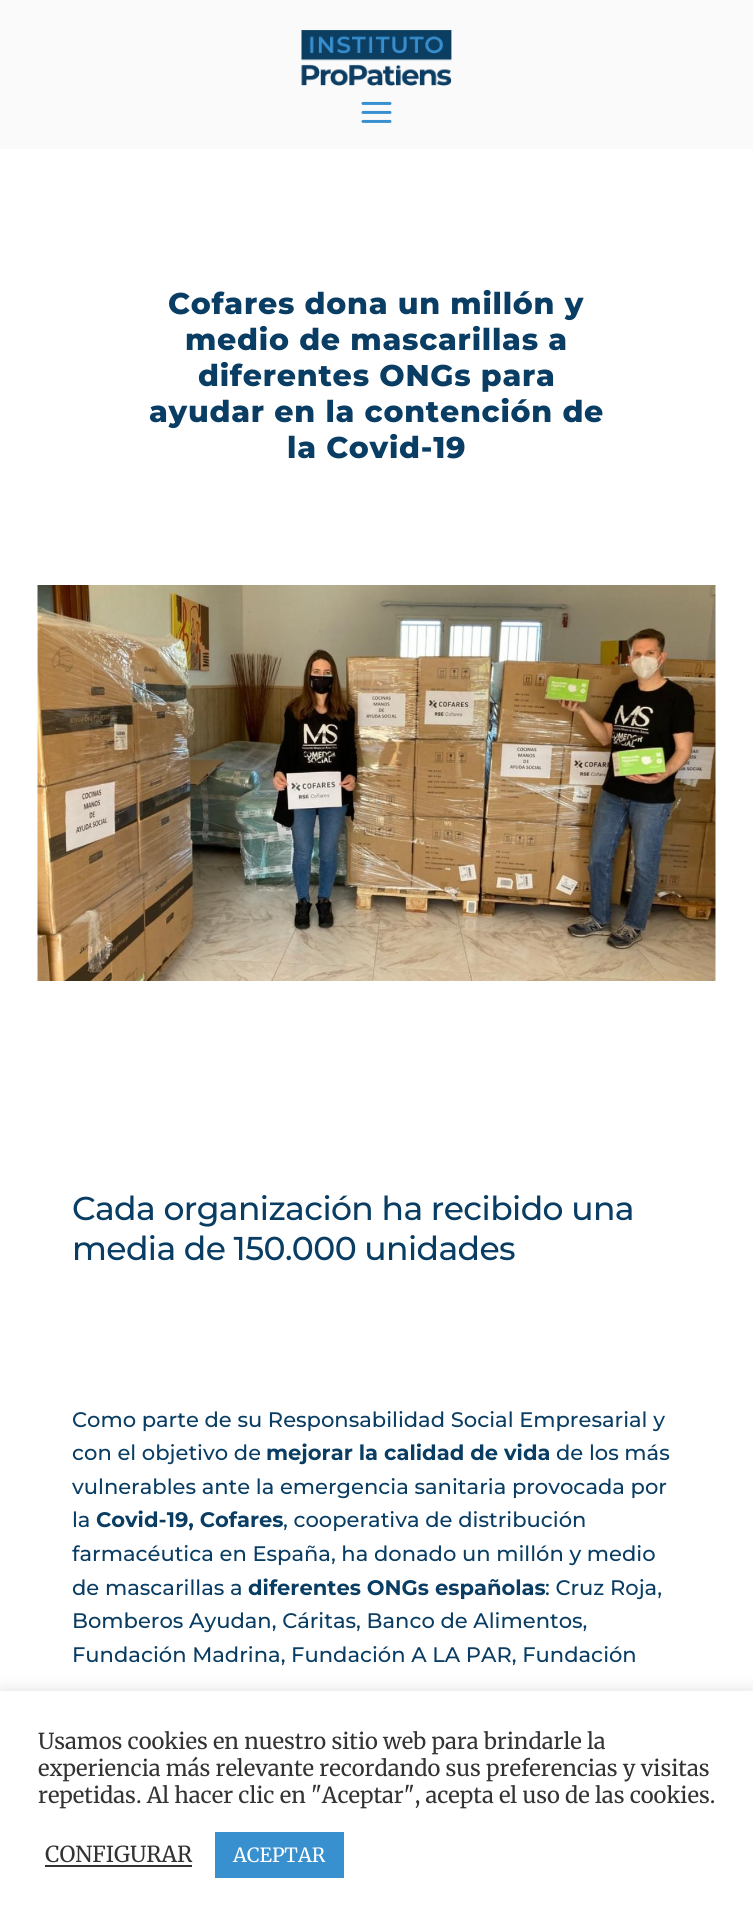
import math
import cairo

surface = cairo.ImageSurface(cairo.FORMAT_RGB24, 753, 1923)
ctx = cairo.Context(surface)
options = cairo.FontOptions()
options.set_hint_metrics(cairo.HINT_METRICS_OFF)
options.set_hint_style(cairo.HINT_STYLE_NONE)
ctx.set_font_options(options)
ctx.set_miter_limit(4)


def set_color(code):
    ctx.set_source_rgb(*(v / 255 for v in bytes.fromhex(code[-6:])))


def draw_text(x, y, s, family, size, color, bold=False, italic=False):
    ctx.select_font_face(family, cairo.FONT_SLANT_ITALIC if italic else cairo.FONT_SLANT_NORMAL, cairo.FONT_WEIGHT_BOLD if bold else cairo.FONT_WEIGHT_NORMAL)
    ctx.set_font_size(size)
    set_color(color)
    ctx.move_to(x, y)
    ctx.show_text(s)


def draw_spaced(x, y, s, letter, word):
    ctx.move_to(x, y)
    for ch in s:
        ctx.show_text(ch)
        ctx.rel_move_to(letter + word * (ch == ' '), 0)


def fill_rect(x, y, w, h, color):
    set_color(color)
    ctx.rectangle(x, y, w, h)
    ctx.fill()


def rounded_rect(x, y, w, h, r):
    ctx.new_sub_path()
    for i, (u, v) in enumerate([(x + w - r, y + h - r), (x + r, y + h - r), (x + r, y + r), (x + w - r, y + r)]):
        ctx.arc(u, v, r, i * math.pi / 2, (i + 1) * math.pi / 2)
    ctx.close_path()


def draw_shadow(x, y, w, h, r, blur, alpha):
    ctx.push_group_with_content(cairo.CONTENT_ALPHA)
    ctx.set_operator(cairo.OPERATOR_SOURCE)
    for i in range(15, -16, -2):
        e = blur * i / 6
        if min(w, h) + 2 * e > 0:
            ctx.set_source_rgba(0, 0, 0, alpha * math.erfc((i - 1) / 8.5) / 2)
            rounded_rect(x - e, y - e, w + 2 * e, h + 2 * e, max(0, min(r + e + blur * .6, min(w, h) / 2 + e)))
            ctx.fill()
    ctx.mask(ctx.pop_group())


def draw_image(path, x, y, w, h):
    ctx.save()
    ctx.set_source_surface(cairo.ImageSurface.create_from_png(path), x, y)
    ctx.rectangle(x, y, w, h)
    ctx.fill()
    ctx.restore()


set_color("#ffffff")
ctx.paint()
fill_rect(0, 0, 753, 149, "#fafafa")
draw_image("assets/img1.png", 301, 30, 151, 56)
draw_image("assets/img2.png", 361, 101, 31, 22)
ctx.select_font_face("Montserrat Thin")
ctx.set_font_size(30)
set_color("#093d63")
draw_spaced(168, 314, "Cofares dona un millón y", 0.75, 0)
draw_spaced(185, 350, "medio de mascarillas a", 0.75, 0)
draw_spaced(198, 386, "diferentes ONGs para", 0.75, 0)
draw_spaced(149, 422, "ayudar en la contención de", 0.75, 0)
draw_spaced(287, 458, "la Covid-19", 0.75, 0)
draw_image("assets/img3.png", 37, 585, 679, 396)
ctx.select_font_face("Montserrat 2 Thin")
ctx.set_font_size(33)
draw_spaced(72, 1220, "Cada organización ha recibido una", -0.6, 0)
draw_spaced(72, 1260, "media de 150.000 unidades", -0.6, 0)
draw_text(72, 1427, "Como parte de su Responsabilidad Social Empresarial y", "Montserrat 2 Thin", 21.05, "#093d63")
draw_text(72, 1460, "con el objetivo de", "Montserrat 2 Thin", 21.05, "#093d63")
draw_text(266, 1460, "mejorar la calidad de vida", "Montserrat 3 Thin", 21.05, "#093d63")
draw_text(556, 1460, "de los más", "Montserrat 2 Thin", 21.05, "#093d63")
draw_text(72, 1494, "vulnerables ante la emergencia sanitaria provocada por", "Montserrat 2 Thin", 21.05, "#093d63")
draw_text(72, 1527, "la", "Montserrat 2 Thin", 21.05, "#093d63")
draw_text(96, 1527, "Covid-19, Cofares", "Montserrat 3 Thin", 21.05, "#093d63")
draw_text(283, 1527, ", cooperativa de distribución", "Montserrat 2 Thin", 21.05, "#093d63")
draw_text(72, 1561, "farmacéutica en España, ha donado un millón y medio", "Montserrat 2 Thin", 21.05, "#093d63")
draw_text(72, 1595, "de mascarillas a", "Montserrat 2 Thin", 21.05, "#093d63")
draw_text(248, 1595, "diferentes ONGs españolas", "Montserrat 3 Thin", 21.05, "#093d63")
draw_text(545, 1595, ": Cruz Roja,", "Montserrat 2 Thin", 21.05, "#093d63")
draw_text(72, 1628, "Bomberos Ayudan, Cáritas, Banco de Alimentos,", "Montserrat 2 Thin", 21.05, "#093d63")
draw_text(72, 1662, "Fundación Madrina, Fundación A LA PAR, Fundación", "Montserrat 2 Thin", 21.05, "#093d63")
set_color("#acabab")
draw_shadow(0, 1689, 753, 233, 0, 7.5, 0.3)
fill_rect(0, 1691, 753, 232, "#ffffff")
draw_text(38, 1749, "Usamos cookies en nuestro sitio web para brindarle la", "Merriweather Light", 22, "#333333")
draw_text(38, 1776, "experiencia más relevante recordando sus preferencias y visitas", "Merriweather Light", 22, "#333333")
draw_text(38, 1803, "repetidas. Al hacer clic en \"Aceptar\", acepta el uso de las cookies.", "Merriweather Light", 22, "#333333")
draw_text(45, 1862, "CONFIGURAR", "Merriweather Light", 22, "#333333")
fill_rect(45, 1865, 147, 2, "#333333")
fill_rect(215, 1832, 129, 46, "#3990cf")
draw_text(233, 1862, "ACEPTAR", "Merriweather Light", 19.5, "#ffffff")
surface.write_to_png("output.png")
